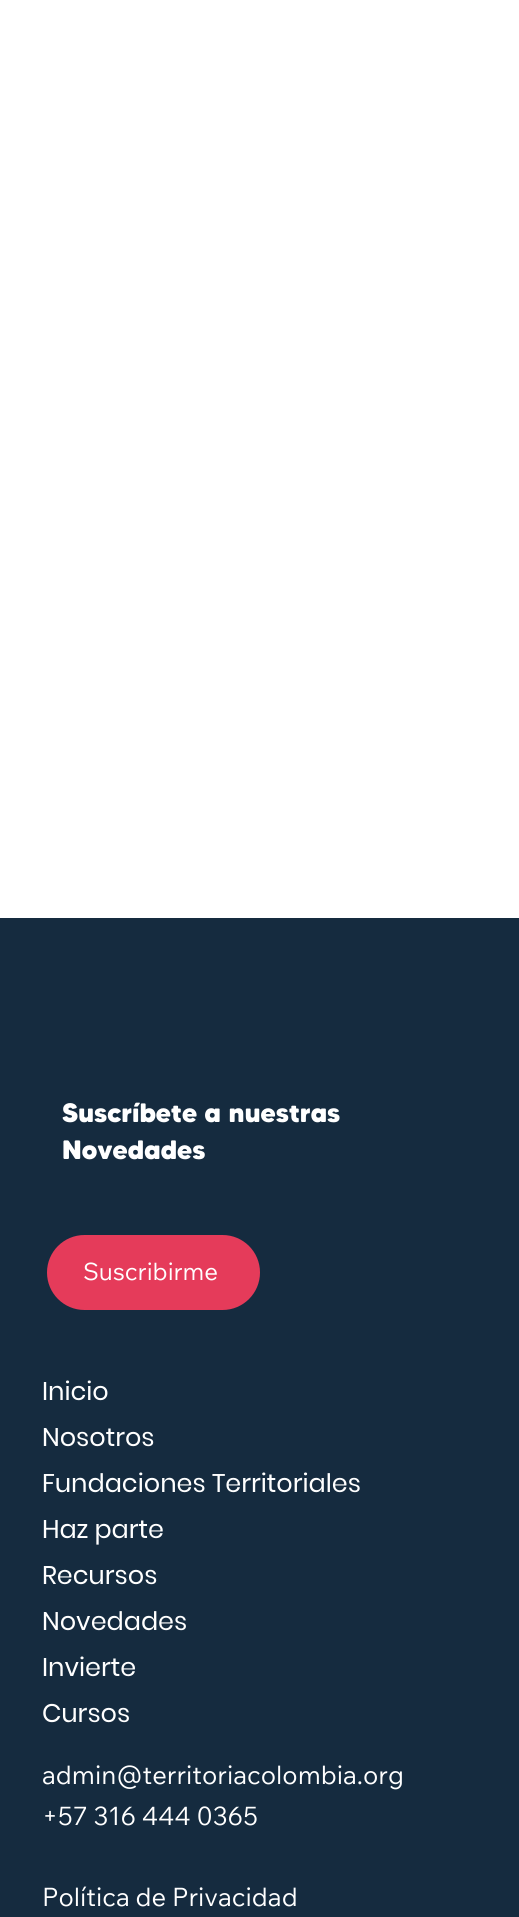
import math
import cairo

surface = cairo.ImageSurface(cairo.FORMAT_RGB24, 519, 1917)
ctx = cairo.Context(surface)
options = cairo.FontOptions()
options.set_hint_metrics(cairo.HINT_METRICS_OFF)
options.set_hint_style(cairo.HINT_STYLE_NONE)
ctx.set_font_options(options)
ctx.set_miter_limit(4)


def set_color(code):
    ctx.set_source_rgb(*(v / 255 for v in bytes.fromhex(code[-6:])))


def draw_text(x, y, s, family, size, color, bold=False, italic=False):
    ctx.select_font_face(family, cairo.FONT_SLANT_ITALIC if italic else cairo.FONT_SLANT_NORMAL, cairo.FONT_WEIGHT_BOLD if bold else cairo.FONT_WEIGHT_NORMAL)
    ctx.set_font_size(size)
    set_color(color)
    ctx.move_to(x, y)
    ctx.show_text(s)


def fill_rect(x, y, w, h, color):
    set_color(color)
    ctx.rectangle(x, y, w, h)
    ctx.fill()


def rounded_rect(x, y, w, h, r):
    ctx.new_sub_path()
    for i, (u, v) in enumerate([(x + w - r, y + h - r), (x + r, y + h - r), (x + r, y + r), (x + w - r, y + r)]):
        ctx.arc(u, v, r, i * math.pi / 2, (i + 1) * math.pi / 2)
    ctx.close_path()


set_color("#ffffff")
ctx.paint()
fill_rect(0, 918, 519, 999, "#152b3f")
draw_text(62, 1122, "Suscríbete a nuestras", "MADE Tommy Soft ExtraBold", 26.6, "#ffffff")
draw_text(62, 1159, "Novedades", "MADE Tommy Soft ExtraBold", 26.6, "#ffffff")
set_color("#e53b5a")
rounded_rect(47, 1235, 213, 75, 37.5)
ctx.fill()
draw_text(83, 1280, "Suscribirme", "Wix Madefor Text", 24, "#ffffff")
draw_text(42, 1400, "Inicio", "Poppins", 25.5, "#ffffff")
draw_text(42, 1446, "Nosotros", "Poppins", 25.5, "#ffffff")
draw_text(42, 1492, "Fundaciones Territoriales", "Poppins", 25.5, "#ffffff")
draw_text(42, 1538, "Haz parte", "Poppins", 25.5, "#ffffff")
draw_text(42, 1584, "Recursos", "Poppins", 25.5, "#ffffff")
draw_text(42, 1630, "Novedades", "Poppins", 25.5, "#ffffff")
draw_text(42, 1676, "Invierte", "Poppins", 25.5, "#ffffff")
draw_text(42, 1722, "Cursos", "Poppins", 25.5, "#ffffff")
draw_text(42, 1784, "admin@territoriacolombia.org", "Wix Madefor Text", 25.5, "#ffffff")
draw_text(42, 1825, "+57 316 444 0365", "Wix Madefor Text", 25.5, "#ffffff")
draw_text(42, 1906, "Política de Privacidad", "Wix Madefor Text", 25.5, "#ffffff")
surface.write_to_png("output.png")
